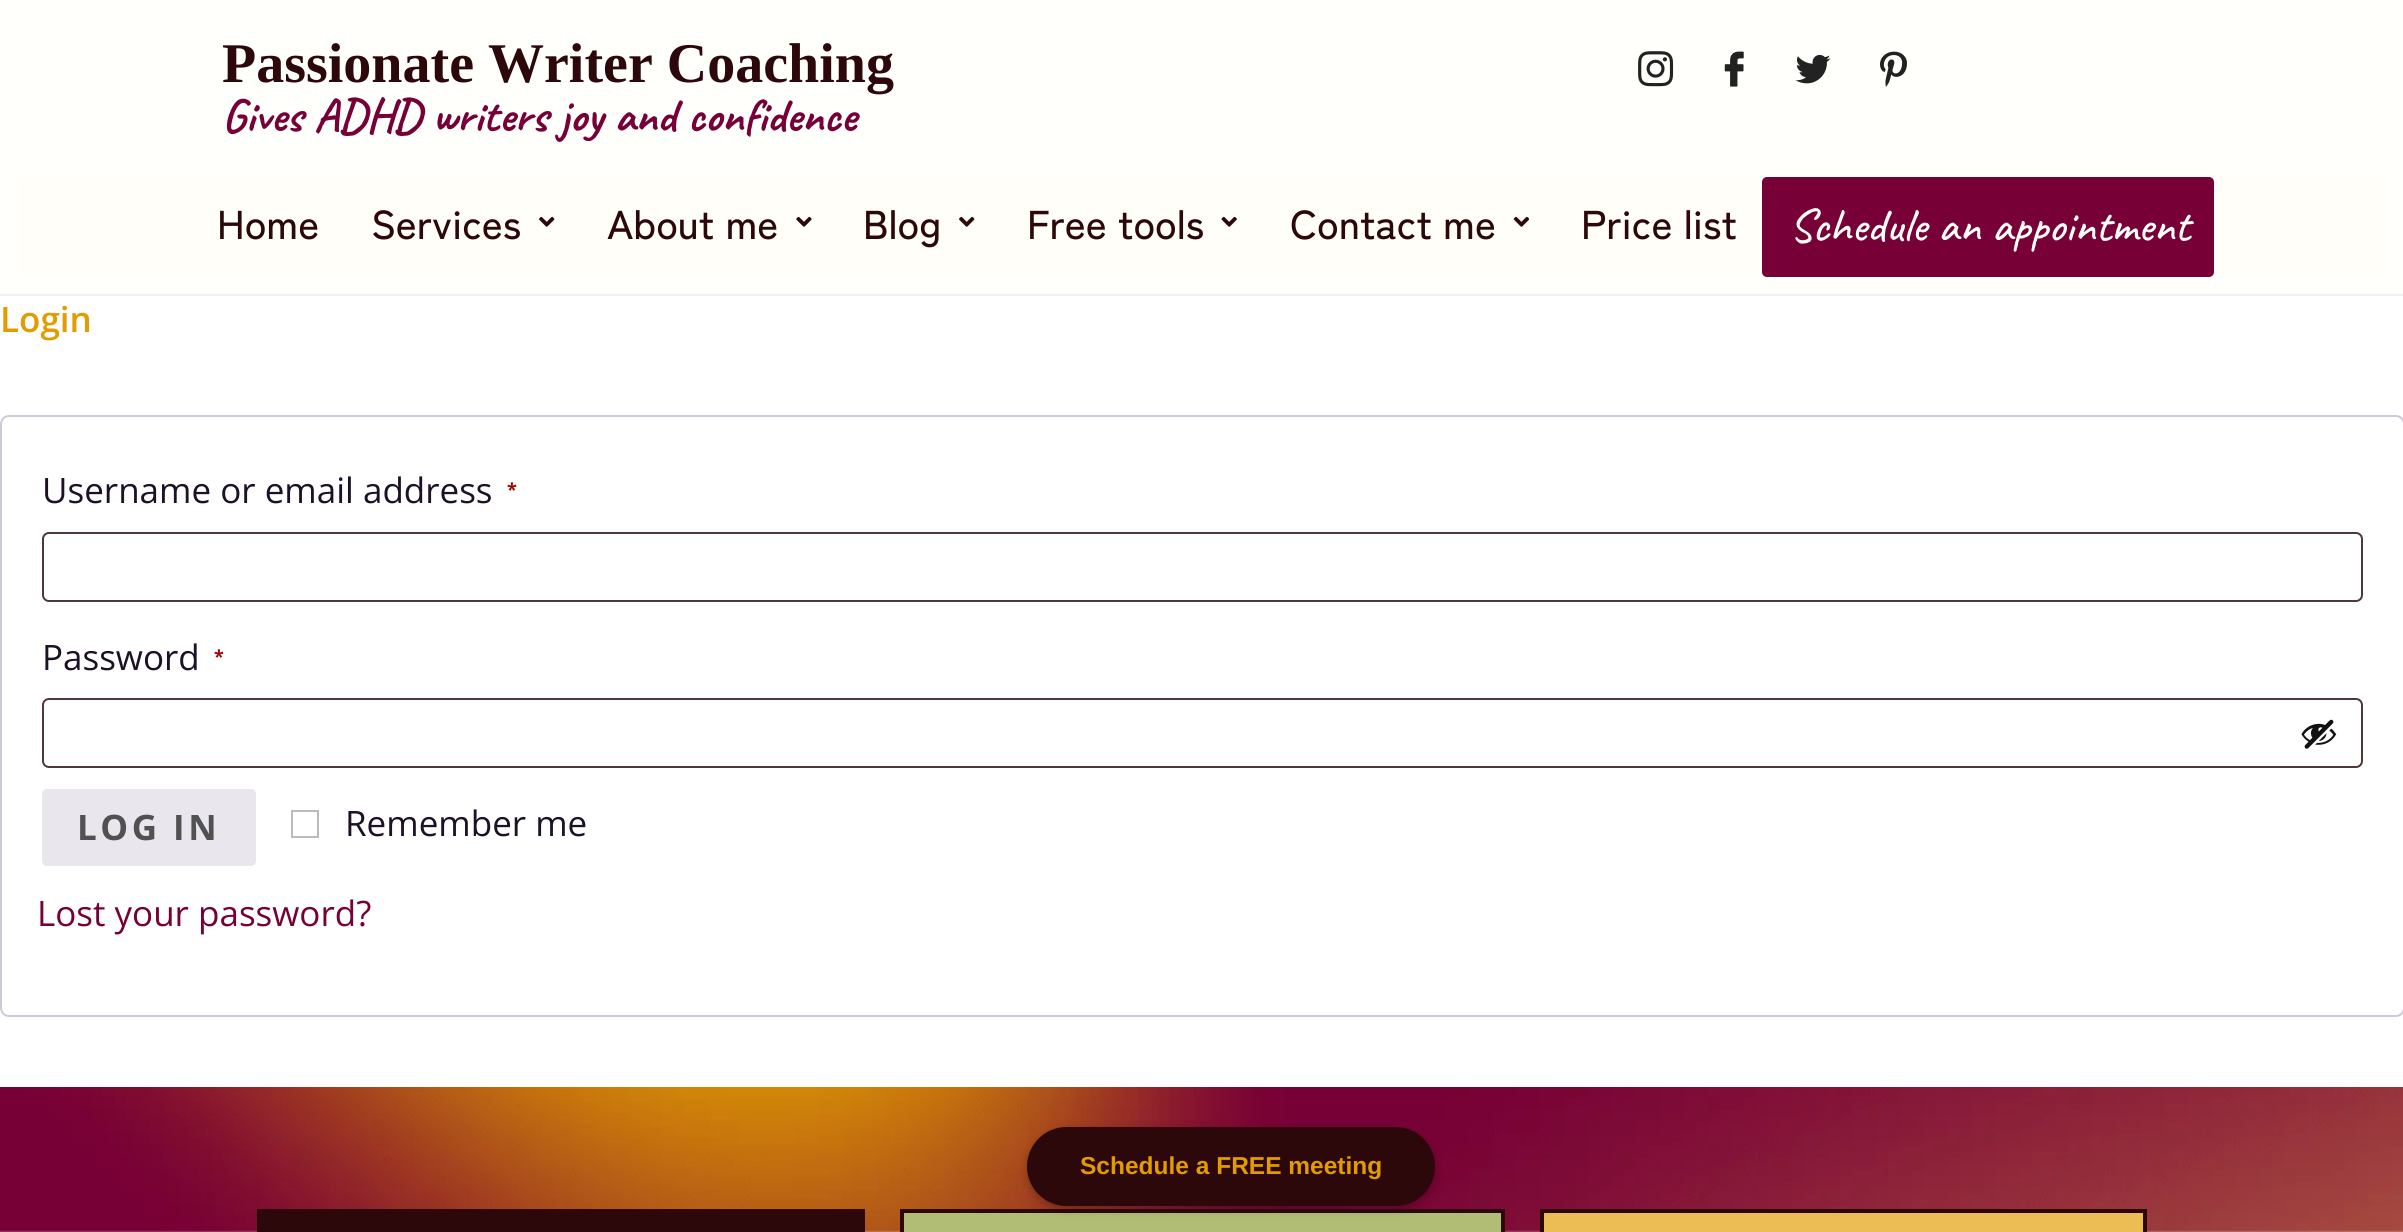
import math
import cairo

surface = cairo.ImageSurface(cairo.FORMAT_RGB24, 2403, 1232)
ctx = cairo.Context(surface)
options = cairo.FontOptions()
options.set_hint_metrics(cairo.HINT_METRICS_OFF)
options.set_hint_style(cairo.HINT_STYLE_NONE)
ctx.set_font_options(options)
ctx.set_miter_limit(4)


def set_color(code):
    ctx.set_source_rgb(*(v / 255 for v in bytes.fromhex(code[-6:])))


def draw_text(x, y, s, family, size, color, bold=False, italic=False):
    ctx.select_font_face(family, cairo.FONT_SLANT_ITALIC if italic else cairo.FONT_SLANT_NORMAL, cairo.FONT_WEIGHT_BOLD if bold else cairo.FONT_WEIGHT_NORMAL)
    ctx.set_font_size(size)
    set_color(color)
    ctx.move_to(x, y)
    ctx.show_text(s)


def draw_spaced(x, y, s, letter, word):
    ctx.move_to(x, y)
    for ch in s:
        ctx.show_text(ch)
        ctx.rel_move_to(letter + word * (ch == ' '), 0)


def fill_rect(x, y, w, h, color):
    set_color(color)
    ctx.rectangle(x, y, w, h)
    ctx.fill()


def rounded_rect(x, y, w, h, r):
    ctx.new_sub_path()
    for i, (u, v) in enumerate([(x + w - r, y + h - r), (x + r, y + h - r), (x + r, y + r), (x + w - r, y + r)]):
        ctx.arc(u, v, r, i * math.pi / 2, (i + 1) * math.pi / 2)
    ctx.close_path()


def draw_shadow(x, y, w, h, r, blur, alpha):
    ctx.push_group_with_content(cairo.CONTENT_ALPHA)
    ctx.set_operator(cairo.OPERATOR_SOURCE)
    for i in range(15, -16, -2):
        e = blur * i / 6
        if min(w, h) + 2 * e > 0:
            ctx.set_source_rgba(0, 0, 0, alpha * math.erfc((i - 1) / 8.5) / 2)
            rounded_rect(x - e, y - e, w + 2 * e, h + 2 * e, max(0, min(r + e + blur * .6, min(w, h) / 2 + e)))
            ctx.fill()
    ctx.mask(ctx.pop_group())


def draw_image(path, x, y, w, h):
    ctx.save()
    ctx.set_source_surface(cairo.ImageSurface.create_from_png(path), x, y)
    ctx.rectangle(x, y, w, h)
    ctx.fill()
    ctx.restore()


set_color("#ffffff")
ctx.paint()
draw_image("assets/img1.png", 0, 1087, 2403, 145)
fill_rect(0, 294, 2403, 2, "#f1f1f1")
fill_rect(0, 0, 2403, 294, "#fffffc")
draw_text(222, 82, "Passionate Writer Coaching", "Liberation Serif", 56, "#2d080a", bold=True)
draw_text(222, 131, "Gives ADHD writers joy and confidence", "Caveat", 47.25, "#770036", bold=True)
draw_image("assets/img2.png", 1638, 51, 36, 36)
draw_image("assets/img3.png", 1724, 51, 20, 36)
draw_image("assets/img4.png", 1795, 54, 36, 30)
draw_image("assets/img5.png", 1880, 51, 27, 36)
fill_rect(18, 177, 2369, 100, "#fffef8")
draw_text(217, 239, "Home", "Zen Kaku Gothic Antique Medium", 40.25, "#2d080a")
draw_text(371, 239, "Services", "Zen Kaku Gothic Antique Medium", 40.25, "#2d080a")
draw_image("assets/img6.png", 539, 216, 16, 11)
draw_text(607, 239, "About me", "Zen Kaku Gothic Antique Medium", 40.25, "#2d080a")
draw_image("assets/img7.png", 796, 216, 16, 11)
draw_text(863, 239, "Blog", "Zen Kaku Gothic Antique Medium", 40.25, "#2d080a")
draw_image("assets/img6.png", 959, 216, 16, 11)
draw_text(1027, 239, "Free tools", "Zen Kaku Gothic Antique Medium", 40.25, "#2d080a")
draw_image("assets/img8.png", 1221, 216, 16, 11)
draw_text(1290, 239, "Contact me", "Zen Kaku Gothic Antique Medium", 40.25, "#2d080a")
draw_image("assets/img9.png", 1513, 216, 17, 11)
draw_text(1581, 239, "Price list", "Zen Kaku Gothic Antique Medium", 40.25, "#2d080a")
set_color("#770036")
rounded_rect(1762, 177, 452, 100, 5)
ctx.fill()
draw_text(1789, 241, "Schedule an appointment", "Caveat Medium", 47.25, "#fffef8")
draw_text(0, 332, "Login", "Open Sans SemiBold", 35, "#e29c00")
rounded_rect(1, 416, 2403, 600, 8)
set_color("#cfc8d8")
ctx.stroke()
draw_text(42, 503, "Username or email address", "Open Sans", 35, "#1d1128")
draw_text(507, 496, "*", "Open Sans", 18, "#aa0000", bold=True)
rounded_rect(43, 533, 2319, 68, 6)
set_color("#4d3939")
ctx.stroke()
draw_text(42, 670, "Password", "Open Sans", 35, "#1d1128")
draw_text(214, 663, "*", "Open Sans", 18, "#aa0000", bold=True)
rounded_rect(43, 699, 2319, 68, 6)
set_color("#4d3939")
ctx.stroke()
draw_image("assets/img10.png", 2301, 719, 36, 30)
set_color("#e9e6ed")
rounded_rect(42, 789, 214, 77, 5)
ctx.fill()
ctx.set_font_size(35)
set_color("#515151")
draw_spaced(77, 840, "LOG IN", 3.5, 0)
ctx.rectangle(292, 811, 26, 26)
set_color("#bbbbbb")
ctx.stroke()
draw_text(345, 836, "Remember me", "Open Sans", 35, "#1d1128")
draw_text(37, 926, "Lost your password?", "Open Sans", 35, "#770036")
fill_rect(257, 1209, 608, 23, "#2d080a")
set_color("#b1bc74")
ctx.rectangle(902, 1211, 601, 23)
ctx.fill_preserve()
set_color("#2d080a")
ctx.set_line_width(4)
ctx.stroke()
set_color("#ecbd54")
ctx.rectangle(1542, 1211, 603, 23)
ctx.fill_preserve()
set_color("#2d080a")
ctx.stroke()
set_color("#000000")
draw_shadow(1027, 1131, 408, 78, 39, 4.5, 0.25)
set_color("#2d080a")
rounded_rect(1027, 1127, 408, 79, 39.5)
ctx.fill()
draw_text(1080, 1174, "Schedule a FREE meeting", "Liberation Sans", 24.5, "#e29c00", bold=True)
surface.write_to_png("output.png")
